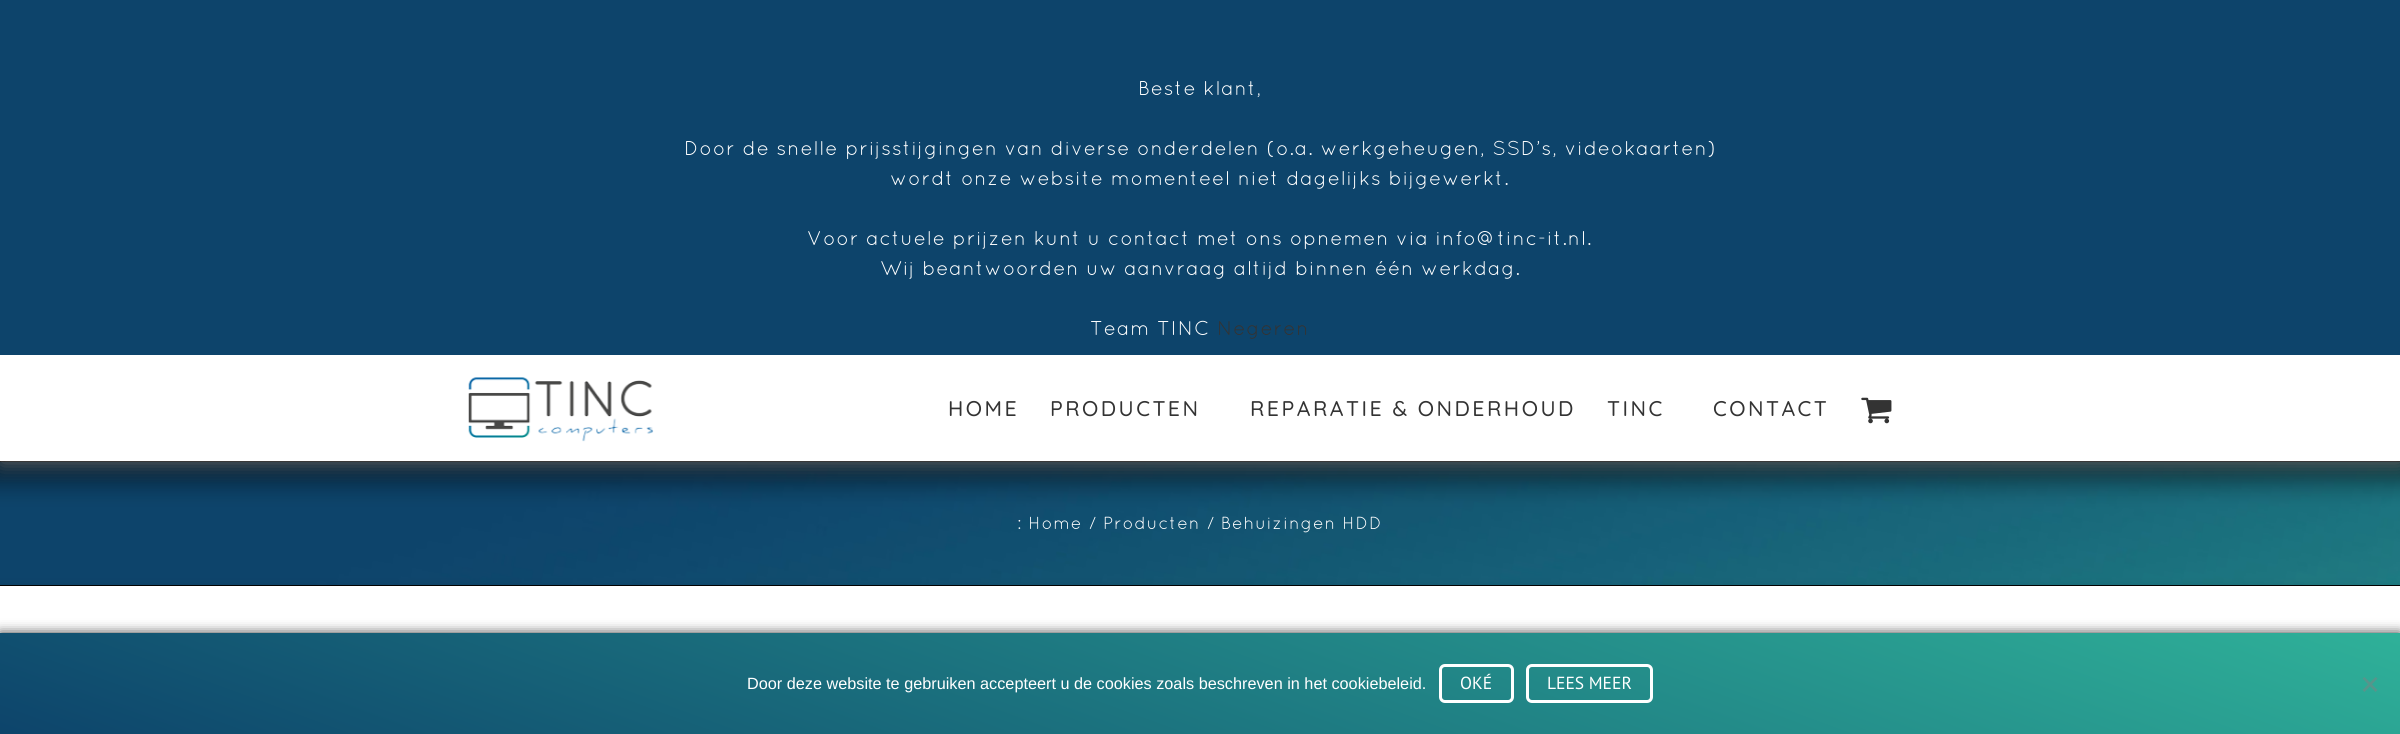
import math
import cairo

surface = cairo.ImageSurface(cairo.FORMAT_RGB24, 2400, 734)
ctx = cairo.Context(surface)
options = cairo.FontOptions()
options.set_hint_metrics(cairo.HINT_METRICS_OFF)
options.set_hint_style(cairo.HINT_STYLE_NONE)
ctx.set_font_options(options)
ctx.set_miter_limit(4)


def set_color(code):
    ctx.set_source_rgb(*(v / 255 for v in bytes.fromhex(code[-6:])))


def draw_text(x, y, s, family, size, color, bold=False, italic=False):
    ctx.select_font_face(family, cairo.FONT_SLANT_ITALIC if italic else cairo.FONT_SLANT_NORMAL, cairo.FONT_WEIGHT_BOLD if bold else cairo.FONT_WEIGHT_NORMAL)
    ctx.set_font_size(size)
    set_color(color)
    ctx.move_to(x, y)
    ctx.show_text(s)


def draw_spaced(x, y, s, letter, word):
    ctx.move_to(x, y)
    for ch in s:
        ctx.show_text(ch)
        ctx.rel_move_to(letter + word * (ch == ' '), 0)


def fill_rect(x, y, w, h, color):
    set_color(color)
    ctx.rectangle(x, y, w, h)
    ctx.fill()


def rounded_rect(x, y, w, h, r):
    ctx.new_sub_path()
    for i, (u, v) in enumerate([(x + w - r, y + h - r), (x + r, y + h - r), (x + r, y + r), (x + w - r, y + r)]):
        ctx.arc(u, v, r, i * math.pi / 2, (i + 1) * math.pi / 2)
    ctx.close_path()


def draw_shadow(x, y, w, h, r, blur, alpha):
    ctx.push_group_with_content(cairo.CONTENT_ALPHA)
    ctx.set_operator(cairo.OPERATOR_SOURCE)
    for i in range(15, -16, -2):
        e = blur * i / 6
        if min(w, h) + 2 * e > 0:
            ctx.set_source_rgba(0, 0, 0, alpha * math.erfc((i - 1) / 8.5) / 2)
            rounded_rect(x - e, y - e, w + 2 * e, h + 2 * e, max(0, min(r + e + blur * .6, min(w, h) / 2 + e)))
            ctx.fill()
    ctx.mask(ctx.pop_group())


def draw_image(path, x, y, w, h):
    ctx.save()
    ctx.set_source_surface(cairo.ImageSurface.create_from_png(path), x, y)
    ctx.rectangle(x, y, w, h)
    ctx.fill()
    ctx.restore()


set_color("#ffffff")
ctx.paint()
draw_image("assets/img3.png", 0, 462, 2400, 123)
fill_rect(0, 461, 2400, 1, "#020202")
ctx.save()
ctx.rectangle(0, 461, 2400, 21)
ctx.clip()
set_color("#666666")
draw_shadow(1, 356, 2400, 107, 0, 9.5, 1)
ctx.restore()
fill_rect(0, 0, 2400, 355, "#0d446b")
ctx.select_font_face("Quicksand")
ctx.set_font_size(20)
set_color("#ffffff")
draw_spaced(1138, 95, "Beste klant,", 0.88, 0)
draw_spaced(684, 155, "Door de snelle prijsstijgingen van diverse onderdelen (o.a. werkgeheugen, SSD’s, videokaarten)", 0.88, 0)
draw_spaced(890, 185, "wordt onze website momenteel niet dagelijks bijgewerkt.", 0.88, 0)
draw_spaced(807, 245, "Voor actuele prijzen kunt u contact met ons opnemen via info@tinc-it.nl.", 0.88, 0)
draw_spaced(880, 275, "Wij beantwoorden uw aanvraag altijd binnen één werkdag.", 0.88, 0)
draw_spaced(1090, 335, "Team TINC", 0.88, 0)
set_color("#333333")
draw_spaced(1217, 335, "Negeren", 0.88, 0)
draw_image("assets/img1.png", 468, 377, 186, 65)
ctx.select_font_face("Quicksand Medium")
ctx.set_font_size(21.25)
draw_spaced(948, 416, "HOME", 2.5, 0)
draw_spaced(1050, 416, "PRODUCTEN", 2.5, 0)
draw_spaced(1250, 416, "REPARATIE & ONDERHOUD", 2.5, 0)
draw_spaced(1607, 416, "TINC", 2.5, 0)
draw_spaced(1713, 416, "CONTACT", 2.5, 0)
draw_image("assets/img2.png", 1861, 397, 31, 27)
fill_rect(0, 585, 2400, 1, "#020202")
ctx.select_font_face("Quicksand")
ctx.set_font_size(17.5)
set_color("#ffffff")
draw_spaced(1017, 529, ": Home / Producten / Behuizingen HDD", 0.88, 0)
set_color("#000000")
draw_shadow(0, 633, 2400, 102, 0, 6, 0.75)
gradient = cairo.LinearGradient(1043, 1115, 1357, 253)
gradient.add_color_stop_rgba(0, 0.051, 0.267, 0.42, 1)
gradient.add_color_stop_rgba(1, 0.184, 0.694, 0.6, 1)
ctx.set_source(gradient)
ctx.rectangle(0, 633, 2400, 101)
ctx.fill()
draw_text(747, 689, "Door deze website te gebruiken accepteert u de cookies zoals beschreven in het cookiebeleid.", "Liberation Sans", 16.25, "#ffffff")
rounded_rect(1440.5, 665.5, 72, 36, 4.5)
ctx.set_line_width(3)
ctx.stroke()
draw_text(1460, 689, "OKÉ", "PT Sans", 17.5, "#ffffff")
rounded_rect(1527.5, 665.5, 124, 36, 4.5)
ctx.stroke()
draw_text(1547, 689, "LEES MEER", "PT Sans", 17.5, "#ffffff")
set_color("#57958b")
ctx.new_path()
ctx.move_to(2375.5, 677)
ctx.line_to(2377.5, 678.5)
ctx.line_to(2364.5, 692)
ctx.line_to(2362.5, 690)
ctx.close_path()
ctx.fill()
ctx.new_path()
ctx.move_to(2362.5, 678.5)
ctx.line_to(2364.5, 677)
ctx.line_to(2377.5, 690)
ctx.line_to(2375.5, 692)
ctx.close_path()
ctx.fill()
surface.write_to_png("output.png")
